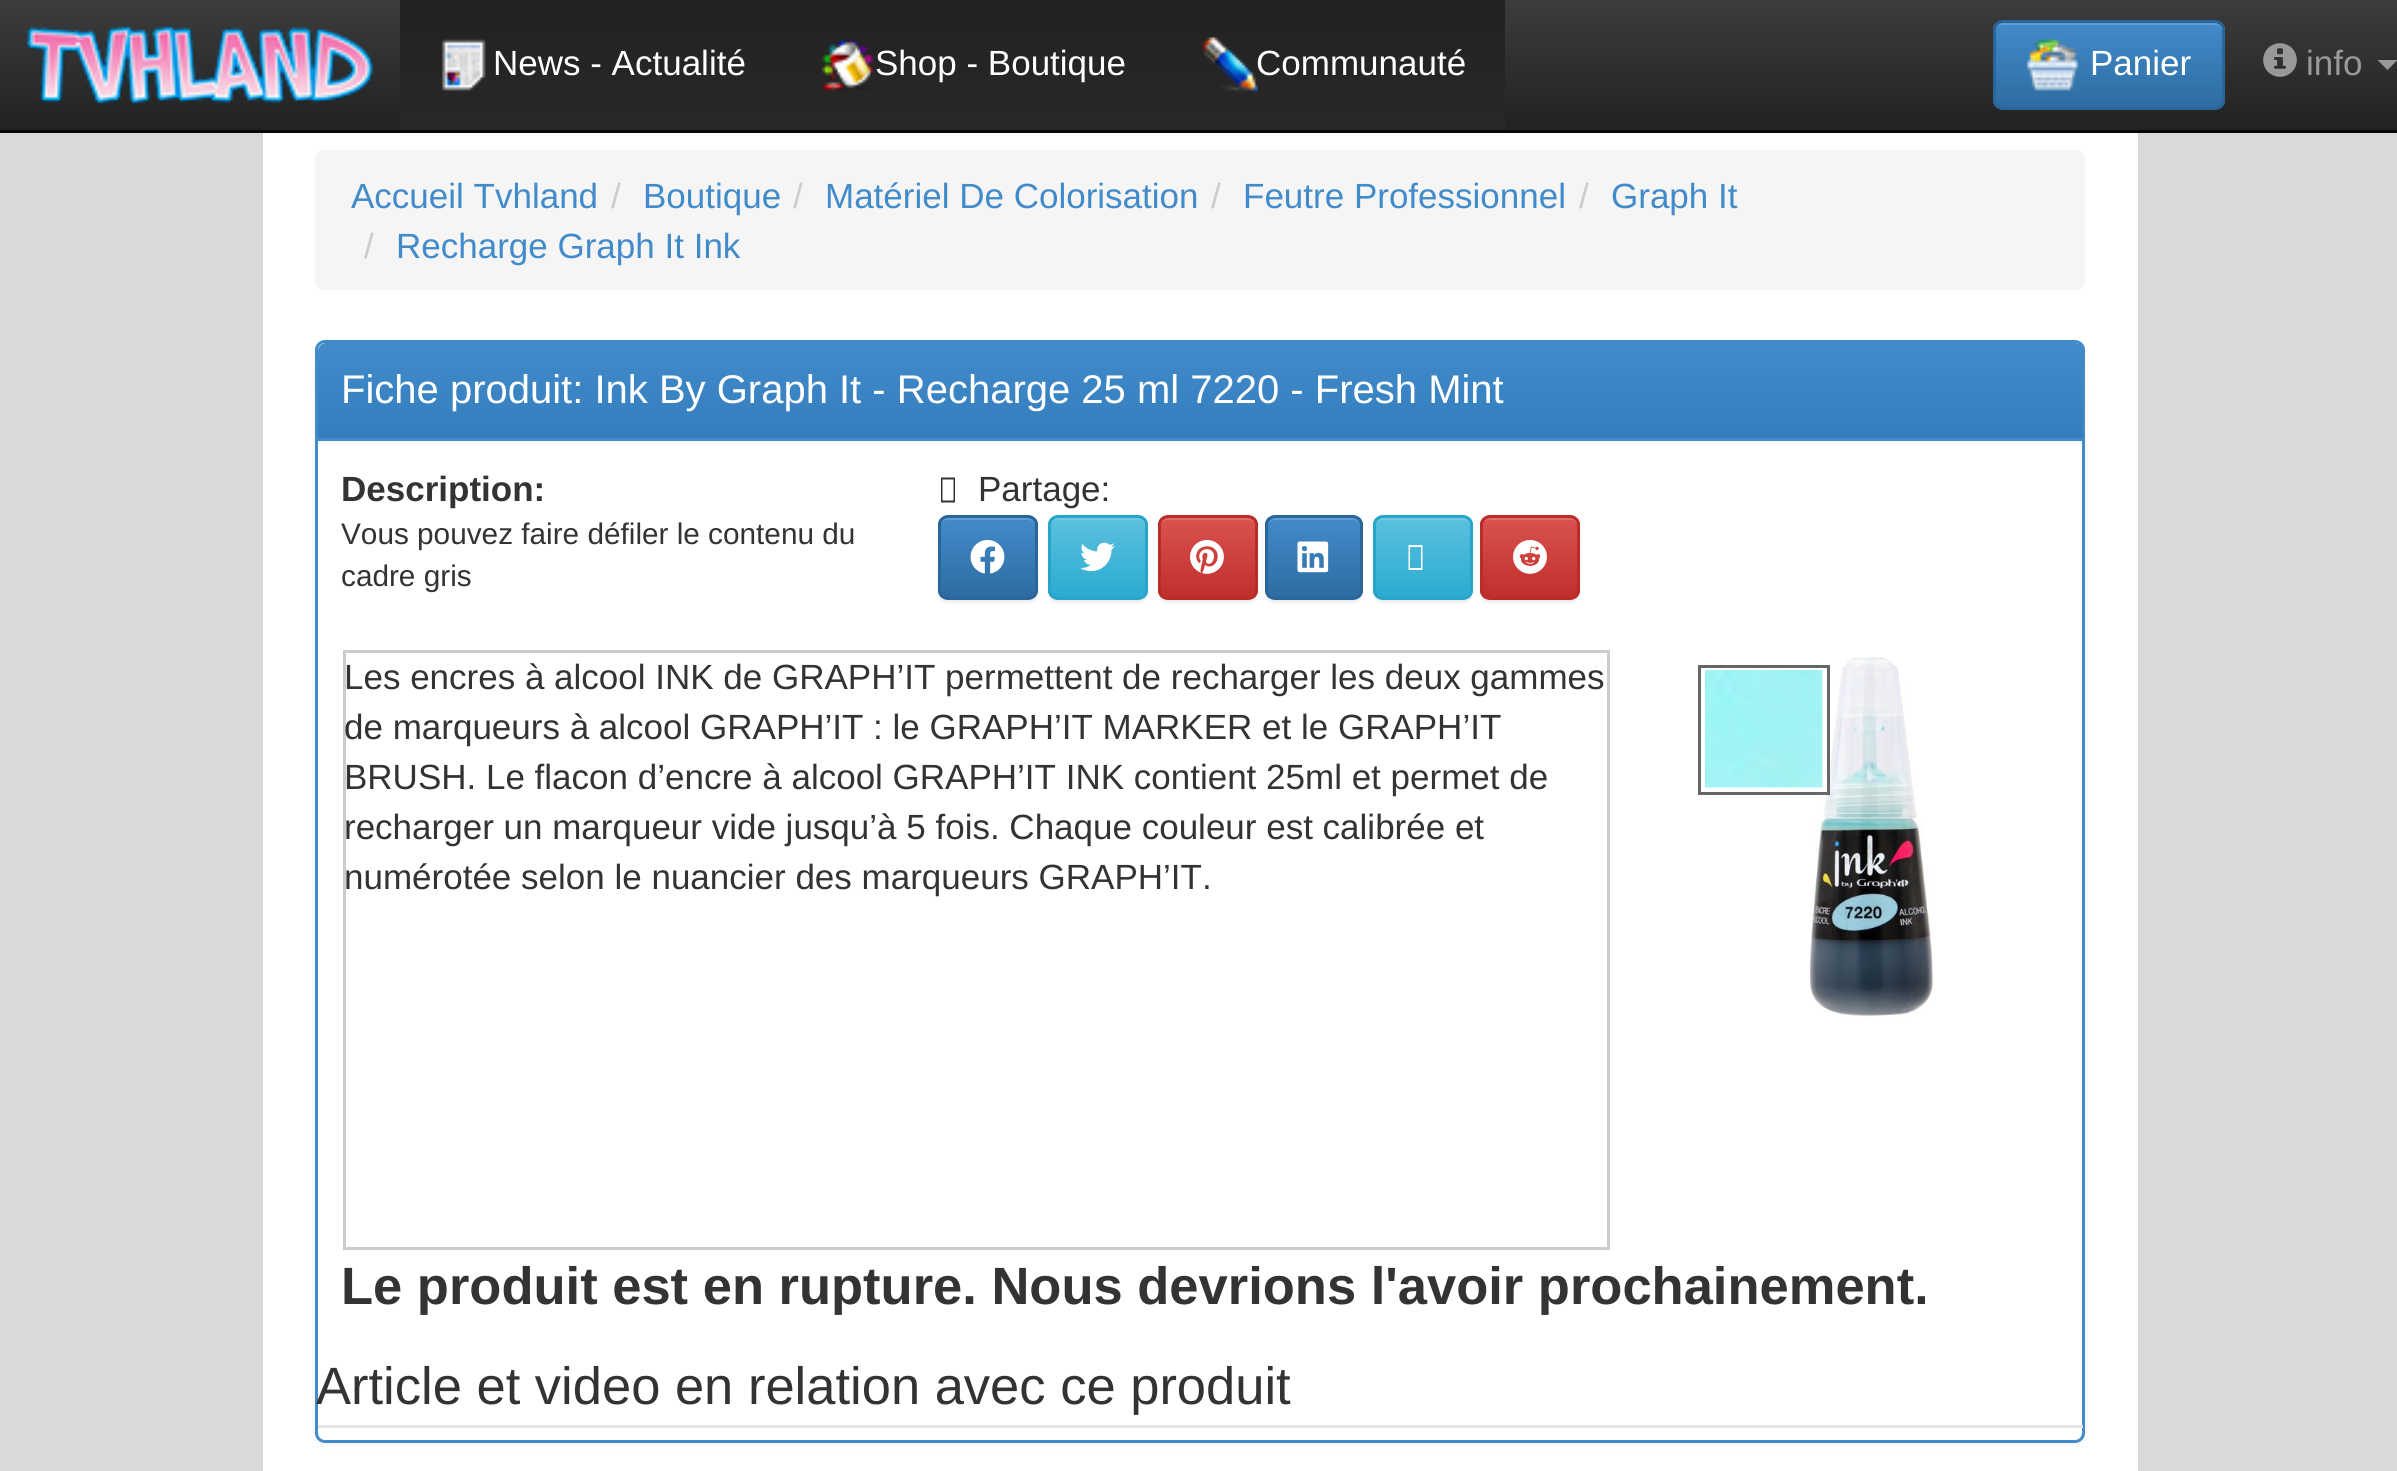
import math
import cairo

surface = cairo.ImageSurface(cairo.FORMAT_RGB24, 2397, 1471)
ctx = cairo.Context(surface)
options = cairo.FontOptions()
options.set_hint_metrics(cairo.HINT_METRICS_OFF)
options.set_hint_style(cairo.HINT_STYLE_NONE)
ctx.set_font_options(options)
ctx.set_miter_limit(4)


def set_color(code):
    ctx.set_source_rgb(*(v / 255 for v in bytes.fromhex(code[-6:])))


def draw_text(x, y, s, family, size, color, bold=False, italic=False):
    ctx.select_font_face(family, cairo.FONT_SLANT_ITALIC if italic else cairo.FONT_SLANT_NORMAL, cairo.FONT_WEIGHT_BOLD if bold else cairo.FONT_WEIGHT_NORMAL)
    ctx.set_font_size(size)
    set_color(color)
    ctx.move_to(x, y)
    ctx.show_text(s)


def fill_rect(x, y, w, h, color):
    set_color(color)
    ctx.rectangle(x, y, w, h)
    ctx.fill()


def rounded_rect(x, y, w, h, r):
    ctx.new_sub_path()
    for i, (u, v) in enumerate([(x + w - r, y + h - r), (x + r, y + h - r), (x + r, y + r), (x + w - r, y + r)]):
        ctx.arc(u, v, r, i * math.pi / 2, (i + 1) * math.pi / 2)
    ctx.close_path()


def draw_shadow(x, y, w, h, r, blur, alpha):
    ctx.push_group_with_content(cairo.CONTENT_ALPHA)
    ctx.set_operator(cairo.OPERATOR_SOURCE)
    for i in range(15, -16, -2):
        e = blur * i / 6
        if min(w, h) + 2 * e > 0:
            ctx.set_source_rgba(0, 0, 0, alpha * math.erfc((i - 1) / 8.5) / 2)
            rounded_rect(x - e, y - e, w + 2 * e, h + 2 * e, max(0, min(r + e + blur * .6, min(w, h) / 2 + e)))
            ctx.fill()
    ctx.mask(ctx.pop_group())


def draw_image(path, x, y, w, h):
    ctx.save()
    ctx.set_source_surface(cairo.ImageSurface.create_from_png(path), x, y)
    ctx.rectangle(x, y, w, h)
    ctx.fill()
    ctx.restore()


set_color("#d9d9d9")
ctx.paint()
gradient = cairo.LinearGradient(1199, 0, 1199, 130)
gradient.add_color_stop_rgba(0, 0.235, 0.235, 0.235, 1)
gradient.add_color_stop_rgba(1, 0.133, 0.133, 0.133, 1)
ctx.set_source(gradient)
ctx.rectangle(0, 0, 2397, 130)
ctx.fill()
fill_rect(0, 130, 2397, 3, "#080808")
draw_image("assets/img1.png", 26, 25, 348, 80)
gradient = cairo.LinearGradient(591, 0, 591, 130)
gradient.add_color_stop_rgba(0, 0.133, 0.133, 0.133, 1)
gradient.add_color_stop_rgba(1, 0.157, 0.157, 0.157, 1)
ctx.set_source(gradient)
ctx.rectangle(400, 0, 383, 130)
ctx.fill()
draw_image("assets/img2.png", 441, 39, 45, 52)
draw_text(493, 75, "News - Actualité", "Liberation Sans", 35, "#ffffff")
gradient = cairo.LinearGradient(974, 0, 974, 130)
gradient.add_color_stop_rgba(0, 0.133, 0.133, 0.133, 1)
gradient.add_color_stop_rgba(1, 0.157, 0.157, 0.157, 1)
ctx.set_source(gradient)
ctx.rectangle(783, 0, 382, 130)
ctx.fill()
draw_image("assets/img3.png", 821, 39, 53, 52)
draw_text(875, 75, "Shop - Boutique", "Liberation Sans", 35, "#ffffff")
gradient = cairo.LinearGradient(1335, 0, 1335, 130)
gradient.add_color_stop_rgba(0, 0.133, 0.133, 0.133, 1)
gradient.add_color_stop_rgba(1, 0.157, 0.157, 0.157, 1)
ctx.set_source(gradient)
ctx.rectangle(1165, 0, 340, 130)
ctx.fill()
draw_image("assets/img4.png", 1202, 37, 56, 56)
draw_text(1256, 75, "Communauté", "Liberation Sans", 35, "#ffffff")
ctx.save()
rounded_rect(1993, 20, 232, 90, 10)
ctx.clip()
gradient = cairo.LinearGradient(2109, 22, 2109, 108)
gradient.add_color_stop_rgba(0, 0.259, 0.545, 0.792, 1)
gradient.add_color_stop_rgba(1, 0.176, 0.424, 0.635, 1)
ctx.set_source(gradient)
ctx.rectangle(1993, 23, 232, 85)
ctx.fill()
ctx.restore()
ctx.set_source_rgba(1, 1, 1, 0.15)
ctx.new_path()
ctx.move_to(2002, 25)
ctx.line_to(2215, 25)
ctx.curve_to(2225, 25, 2222, 38, 2222, 44)
ctx.line_to(2222, 104)
ctx.curve_to(2223, 103, 2223, 102, 2223, 100)
ctx.line_to(2223, 31)
ctx.curve_to(2223, 27, 2219, 23, 2215, 23)
ctx.line_to(2003, 23)
ctx.curve_to(1999, 23, 1995, 27, 1995, 31)
ctx.line_to(1995, 32)
ctx.curve_to(1995, 28, 1998, 25, 2002, 25)
ctx.close_path()
ctx.fill()
rounded_rect(1994.5, 21.5, 229, 87, 8.5)
set_color("#2b669a")
ctx.set_line_width(3)
ctx.stroke()
draw_image("assets/img5.png", 2026, 39, 53, 52)
draw_text(2090, 75, "Panier", "Liberation Sans", 35, "#ffffff")
draw_image("assets/img6.png", 2263, 43, 34, 34)
draw_text(2306, 75, "info", "Liberation Sans", 35, "#999999")
ctx.new_path()
ctx.move_to(2377.5, 60)
ctx.line_to(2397.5, 60)
ctx.line_to(2387.5, 70)
ctx.close_path()
ctx.fill()
fill_rect(263, 133, 1875, 1338, "#ffffff")
set_color("#f5f5f5")
rounded_rect(315, 150, 1770, 140, 10)
ctx.fill()
draw_text(351, 208, "Accueil Tvhland", "Liberation Sans", 35, "#428bca")
draw_text(611, 208, "/", "Liberation Sans", 35, "#cccccc")
draw_text(643, 208, "Boutique", "Liberation Sans", 35, "#428bca")
draw_text(793, 208, "/", "Liberation Sans", 35, "#cccccc")
draw_text(825, 208, "Matériel De Colorisation", "Liberation Sans", 35, "#428bca")
draw_text(1211, 208, "/", "Liberation Sans", 35, "#cccccc")
draw_text(1243, 208, "Feutre Professionnel", "Liberation Sans", 35, "#428bca")
draw_text(1579, 208, "/", "Liberation Sans", 35, "#cccccc")
draw_text(1611, 208, "Graph It", "Liberation Sans", 35, "#428bca")
draw_text(364, 258, "/", "Liberation Sans", 35, "#cccccc")
draw_text(396, 258, "Recharge Graph It Ink", "Liberation Sans", 35, "#428bca")
set_color("#000000")
draw_shadow(315, 343, 1770, 1102, 10, 2.5, 0.05)
set_color("#ffffff")
rounded_rect(316.5, 341.5, 1767, 1100, 8.5)
ctx.fill_preserve()
set_color("#428bca")
ctx.stroke()
gradient = cairo.LinearGradient(1200, 342, 1200, 438)
gradient.add_color_stop_rgba(0, 0.259, 0.545, 0.792, 1)
gradient.add_color_stop_rgba(1, 0.208, 0.494, 0.741, 1)
ctx.set_source(gradient)
ctx.new_path()
ctx.move_to(326, 343)
ctx.line_to(2075, 343)
ctx.curve_to(2079.5, 343, 2083, 346.5, 2083, 351)
ctx.line_to(2083, 438)
ctx.line_to(318, 438)
ctx.line_to(318, 351)
ctx.curve_to(318, 346.5, 321.5, 343, 326, 343)
ctx.close_path()
ctx.fill()
fill_rect(318, 438, 1765, 3, "#428bca")
draw_text(341, 403, "Fiche produit: Ink By Graph It - Recharge 25 ml 7220 - Fresh Mint", "Liberation Sans", 40, "#ffffff")
draw_text(341, 501, "Description:", "Liberation Sans", 35, "#333333", bold=True)
draw_text(341, 544, "Vous pouvez faire défiler le contenu du", "Liberation Sans", 29.75, "#333333")
draw_text(341, 586, "cadre gris", "Liberation Sans", 29.75, "#333333")
ctx.new_path()
ctx.move_to(941, 502.5)
ctx.line_to(941, 477.5)
ctx.line_to(955, 477.5)
ctx.line_to(955, 502.5)
ctx.close_path()
ctx.move_to(942.5, 500.5)
ctx.line_to(953.5, 500.5)
ctx.line_to(953.5, 479.5)
ctx.line_to(942.5, 479.5)
ctx.close_path()
ctx.fill()
draw_text(978, 501, "Partage:", "Liberation Sans", 35, "#333333")
set_color("#000000")
draw_shadow(938, 518, 100, 85, 10, 1, 0.07)
ctx.save()
rounded_rect(938, 515, 100, 85, 10)
ctx.clip()
gradient = cairo.LinearGradient(988, 518, 988, 598)
gradient.add_color_stop_rgba(0, 0.259, 0.545, 0.792, 1)
gradient.add_color_stop_rgba(1, 0.176, 0.424, 0.635, 1)
ctx.set_source(gradient)
ctx.rectangle(938, 518, 100, 80)
ctx.fill()
ctx.restore()
set_color("#5e9cd1")
ctx.new_path()
ctx.move_to(948, 520)
ctx.line_to(1028, 520)
ctx.curve_to(1032, 520, 1035, 523, 1035, 528)
ctx.curve_to(1035, 515, 1024, 518, 1014, 518)
ctx.line_to(961, 518)
ctx.curve_to(951, 518, 940, 515, 940, 528)
ctx.curve_to(940, 523, 943, 520, 948, 520)
ctx.close_path()
ctx.fill()
rounded_rect(939.5, 516.5, 97, 82, 8.5)
set_color("#2b669a")
ctx.stroke()
draw_image("assets/img7.png", 970, 539, 35, 35)
set_color("#000000")
draw_shadow(1048, 518, 100, 85, 10, 1, 0.07)
ctx.save()
rounded_rect(1048, 515, 100, 85, 10)
ctx.clip()
gradient = cairo.LinearGradient(1098, 518, 1098, 598)
gradient.add_color_stop_rgba(0, 0.357, 0.753, 0.871, 1)
gradient.add_color_stop_rgba(1, 0.165, 0.671, 0.824, 1)
ctx.set_source(gradient)
ctx.rectangle(1048, 518, 100, 80)
ctx.fill()
ctx.restore()
ctx.set_source_rgba(1, 1, 1, 0.15)
ctx.new_path()
ctx.move_to(1058, 520)
ctx.line_to(1138, 520)
ctx.curve_to(1142, 520, 1145, 523, 1145, 528)
ctx.curve_to(1145, 515, 1134, 518, 1124, 518)
ctx.line_to(1071, 518)
ctx.curve_to(1061, 518, 1050, 515, 1050, 528)
ctx.curve_to(1050, 523, 1053, 520, 1058, 520)
ctx.close_path()
ctx.fill()
rounded_rect(1049.5, 516.5, 97, 82, 8.5)
set_color("#28a4c9")
ctx.stroke()
draw_image("assets/img8.png", 1080, 542, 35, 30)
set_color("#000000")
draw_shadow(1158, 518, 100, 85, 10, 1, 0.07)
ctx.save()
rounded_rect(1158, 515, 100, 85, 10)
ctx.clip()
gradient = cairo.LinearGradient(1208, 518, 1208, 598)
gradient.add_color_stop_rgba(0, 0.851, 0.325, 0.31, 1)
gradient.add_color_stop_rgba(1, 0.757, 0.18, 0.165, 1)
ctx.set_source(gradient)
ctx.rectangle(1158, 518, 100, 80)
ctx.fill()
ctx.restore()
set_color("#df6c69")
ctx.new_path()
ctx.move_to(1168, 520)
ctx.line_to(1248, 520)
ctx.curve_to(1252, 520, 1255, 523, 1255, 528)
ctx.curve_to(1255, 515, 1244, 518, 1234, 518)
ctx.line_to(1181, 518)
ctx.curve_to(1171, 518, 1160, 515, 1160, 528)
ctx.curve_to(1160, 523, 1163, 520, 1168, 520)
ctx.close_path()
ctx.fill()
rounded_rect(1159.5, 516.5, 97, 82, 8.5)
set_color("#b92c28")
ctx.stroke()
draw_image("assets/img9.png", 1190, 539, 34, 35)
set_color("#000000")
draw_shadow(1265, 518, 98, 85, 10, 1, 0.07)
ctx.save()
rounded_rect(1265, 515, 98, 85, 10)
ctx.clip()
gradient = cairo.LinearGradient(1314, 518, 1314, 598)
gradient.add_color_stop_rgba(0, 0.259, 0.545, 0.792, 1)
gradient.add_color_stop_rgba(1, 0.176, 0.424, 0.635, 1)
ctx.set_source(gradient)
ctx.rectangle(1265, 518, 98, 80)
ctx.fill()
ctx.restore()
set_color("#5e9cd1")
ctx.new_path()
ctx.move_to(1275, 520)
ctx.line_to(1352, 520)
ctx.curve_to(1357, 520, 1360, 523, 1360, 528)
ctx.curve_to(1360, 515, 1349, 518, 1339, 518)
ctx.line_to(1289, 518)
ctx.curve_to(1279, 518, 1268, 515, 1268, 528)
ctx.curve_to(1268, 523, 1271, 520, 1275, 520)
ctx.close_path()
ctx.fill()
rounded_rect(1266.5, 516.5, 95, 82, 8.5)
set_color("#2b669a")
ctx.stroke()
draw_image("assets/img10.png", 1297, 541, 32, 32)
set_color("#000000")
draw_shadow(1373, 518, 100, 85, 10, 1, 0.07)
ctx.save()
rounded_rect(1373, 515, 100, 85, 10)
ctx.clip()
gradient = cairo.LinearGradient(1423, 518, 1423, 598)
gradient.add_color_stop_rgba(0, 0.357, 0.753, 0.871, 1)
gradient.add_color_stop_rgba(1, 0.165, 0.671, 0.824, 1)
ctx.set_source(gradient)
ctx.rectangle(1373, 518, 100, 80)
ctx.fill()
ctx.restore()
ctx.set_source_rgba(1, 1, 1, 0.15)
ctx.new_path()
ctx.move_to(1382, 520)
ctx.line_to(1462, 520)
ctx.curve_to(1467, 520, 1470, 523, 1470, 528)
ctx.curve_to(1470, 515, 1459, 518, 1449, 518)
ctx.line_to(1396, 518)
ctx.curve_to(1386, 518, 1375, 515, 1375, 528)
ctx.curve_to(1375, 523, 1378, 520, 1382, 520)
ctx.close_path()
ctx.fill()
rounded_rect(1374.5, 516.5, 97, 82, 8.5)
set_color("#28a4c9")
ctx.stroke()
set_color("#ffffff")
ctx.new_path()
ctx.move_to(1408.5, 570)
ctx.line_to(1408.5, 545)
ctx.line_to(1422.5, 545)
ctx.line_to(1422.5, 570)
ctx.close_path()
ctx.move_to(1410, 568)
ctx.line_to(1421, 568)
ctx.line_to(1421, 547)
ctx.line_to(1410, 547)
ctx.close_path()
ctx.fill()
set_color("#000000")
draw_shadow(1480, 518, 100, 85, 10, 1, 0.07)
ctx.save()
rounded_rect(1480, 515, 100, 85, 10)
ctx.clip()
gradient = cairo.LinearGradient(1530, 518, 1530, 598)
gradient.add_color_stop_rgba(0, 0.851, 0.325, 0.31, 1)
gradient.add_color_stop_rgba(1, 0.757, 0.18, 0.165, 1)
ctx.set_source(gradient)
ctx.rectangle(1480, 518, 100, 80)
ctx.fill()
ctx.restore()
ctx.set_source_rgba(1, 1, 1, 0.15)
ctx.new_path()
ctx.move_to(1490, 520)
ctx.line_to(1570, 520)
ctx.curve_to(1574, 520, 1578, 523, 1578, 528)
ctx.line_to(1578, 526)
ctx.curve_to(1578, 522, 1574, 518, 1570, 518)
ctx.line_to(1491, 518)
ctx.curve_to(1488, 518, 1485, 520, 1483, 523)
ctx.curve_to(1485, 521, 1488, 520, 1490, 520)
ctx.close_path()
ctx.fill()
rounded_rect(1481.5, 516.5, 97, 82, 8.5)
set_color("#b92c28")
ctx.stroke()
draw_image("assets/img11.png", 1513, 539, 34, 35)
ctx.rectangle(344.5, 651.5, 1264, 597)
set_color("#cccccc")
ctx.stroke()
draw_text(344, 689, "Les encres à alcool INK de GRAPH’IT permettent de recharger les deux gammes", "Liberation Sans", 35, "#333333")
draw_text(344, 739, "de marqueurs à alcool GRAPH’IT : le GRAPH’IT MARKER et le GRAPH’IT", "Liberation Sans", 35, "#333333")
draw_text(344, 789, "BRUSH. Le flacon d’encre à alcool GRAPH’IT INK contient 25ml et permet de", "Liberation Sans", 35, "#333333")
draw_text(344, 839, "recharger un marqueur vide jusqu’à 5 fois. Chaque couleur est calibrée et", "Liberation Sans", 35, "#333333")
draw_text(344, 889, "numérotée selon le nuancier des marqueurs GRAPH’IT.", "Liberation Sans", 35, "#333333")
draw_image("assets/img13.png", 1809, 657, 126, 362)
fill_rect(1826, 785, 1, 7, "#ffffff")
ctx.rectangle(1699.5, 666.5, 129, 127)
set_color("#666666")
ctx.stroke()
draw_image("assets/img12.png", 1705, 670, 118, 118)
draw_text(341, 1304, "Le produit est en rupture. Nous devrions l'avoir prochainement.", "Liberation Sans", 52.5, "#333333", bold=True)
fill_rect(318, 1425, 1765, 3, "#e5e5e5")
draw_text(316, 1404, "Article et video en relation avec ce produit", "Liberation Sans", 52.5, "#333333")
surface.write_to_png("output.png")
